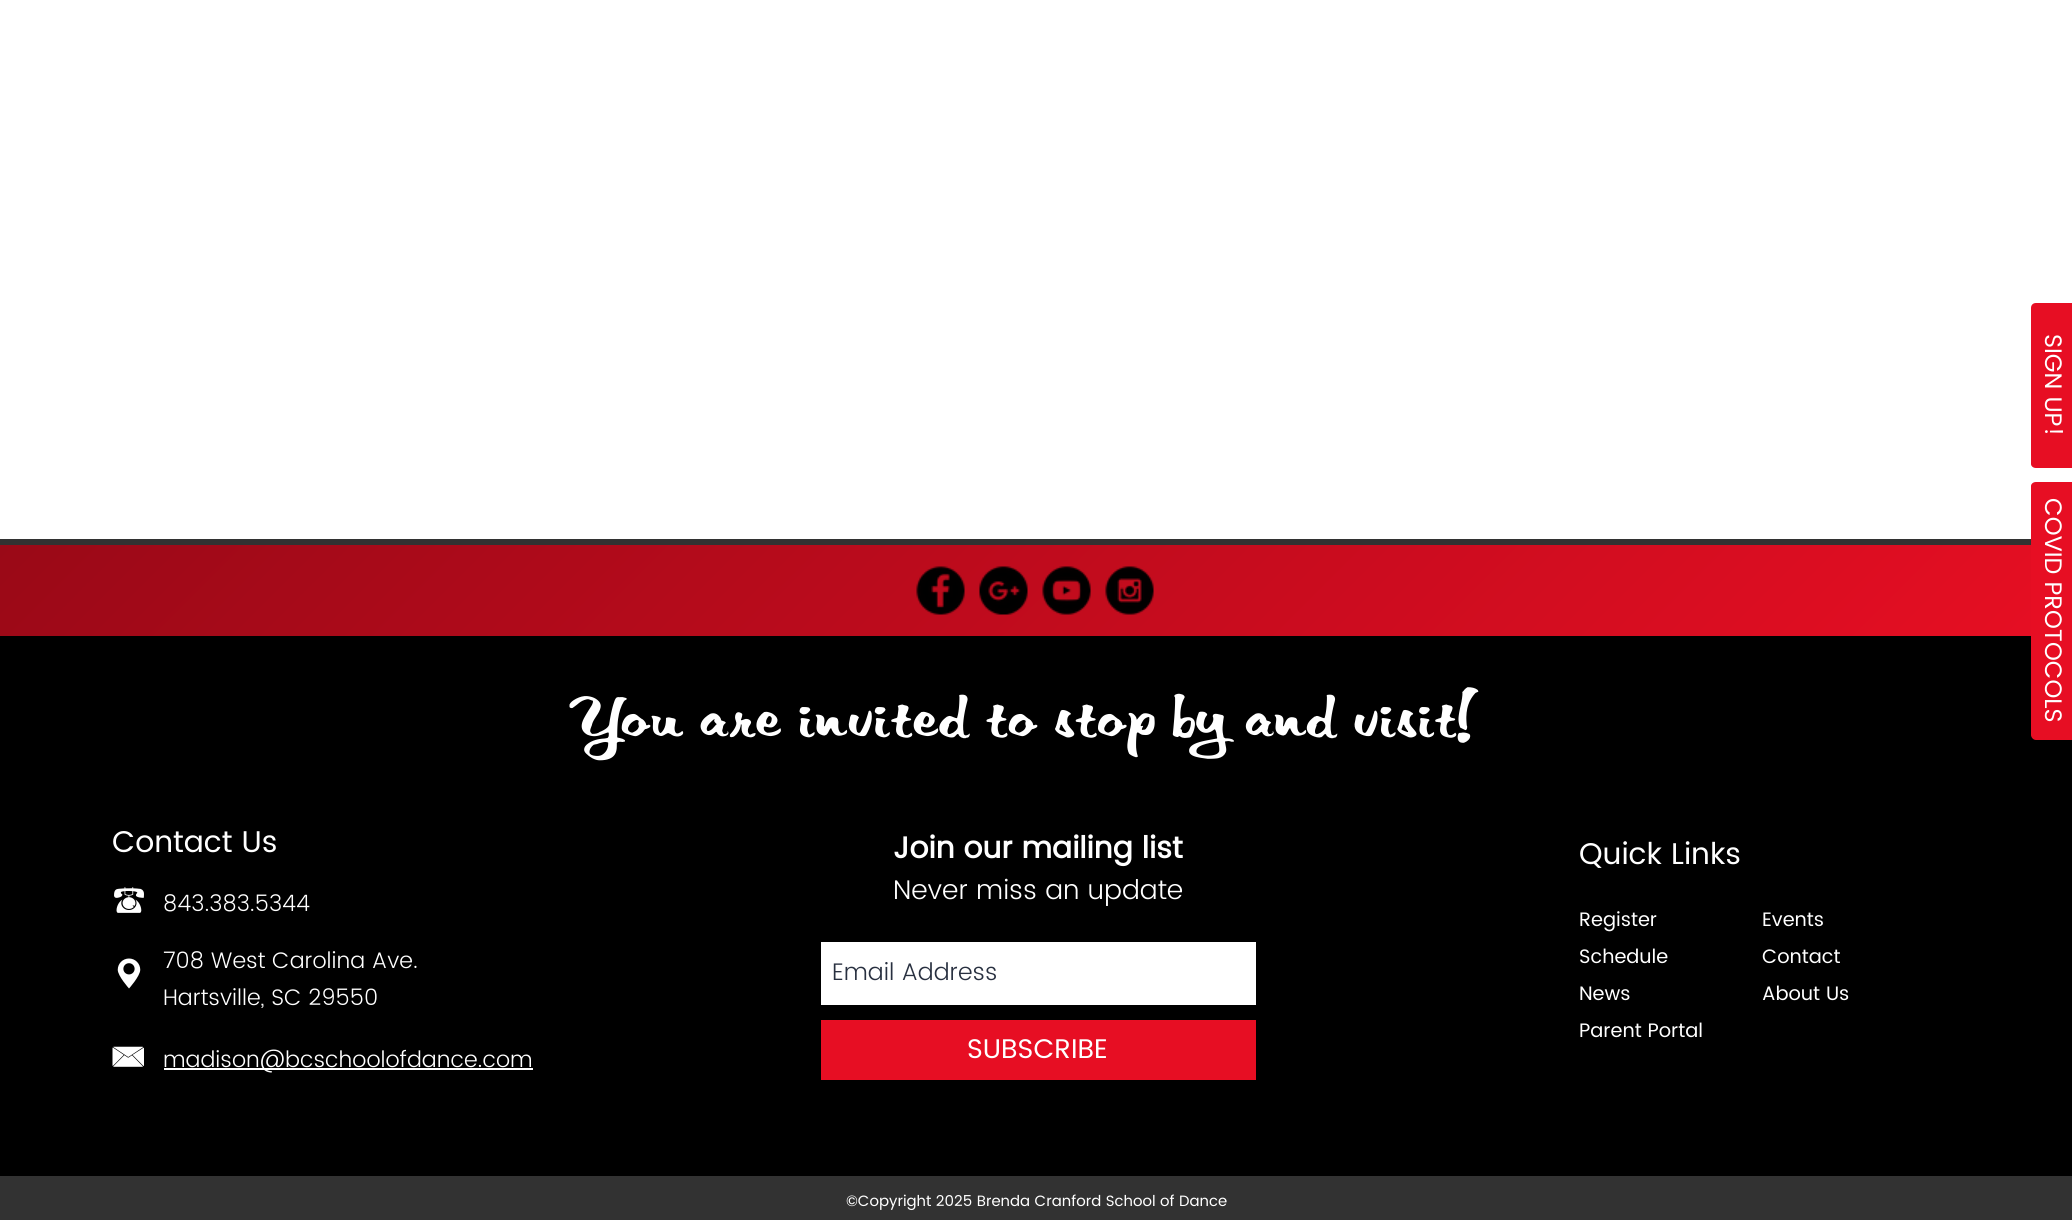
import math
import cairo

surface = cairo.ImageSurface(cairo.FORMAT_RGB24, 2072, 1220)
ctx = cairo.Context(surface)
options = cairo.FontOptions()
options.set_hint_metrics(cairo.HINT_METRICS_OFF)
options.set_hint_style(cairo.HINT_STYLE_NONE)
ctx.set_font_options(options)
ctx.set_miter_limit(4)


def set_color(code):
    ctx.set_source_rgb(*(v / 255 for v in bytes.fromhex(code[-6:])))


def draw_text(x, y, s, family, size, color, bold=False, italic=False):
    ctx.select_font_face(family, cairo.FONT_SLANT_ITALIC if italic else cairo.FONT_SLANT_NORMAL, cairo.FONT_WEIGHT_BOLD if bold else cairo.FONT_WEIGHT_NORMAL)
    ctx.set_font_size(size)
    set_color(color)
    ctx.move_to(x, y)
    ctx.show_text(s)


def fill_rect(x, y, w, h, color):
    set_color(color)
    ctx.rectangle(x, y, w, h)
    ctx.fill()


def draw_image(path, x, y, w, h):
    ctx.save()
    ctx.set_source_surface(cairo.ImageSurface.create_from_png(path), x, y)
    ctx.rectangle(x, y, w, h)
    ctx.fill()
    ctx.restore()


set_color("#ffffff")
ctx.paint()
set_color("#e70e23")
ctx.new_path()
ctx.move_to(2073, 303)
ctx.line_to(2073, 468)
ctx.line_to(2036, 468)
ctx.curve_to(2033, 468, 2031, 466, 2031, 464)
ctx.line_to(2031, 308)
ctx.curve_to(2031, 305, 2033, 303, 2036, 303)
ctx.close_path()
ctx.fill()
ctx.save()
ctx.translate(2045, 334)
ctx.rotate(90 * math.pi / 180)
draw_text(0, 0, "SIGN UP!", "Poppins", 24, "#ffffff")
ctx.restore()
fill_rect(0, 539, 2072, 681, "#323232")
fill_rect(0, 636, 2072, 540, "#000000")
set_color("#e70e23")
ctx.new_path()
ctx.move_to(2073, 482)
ctx.line_to(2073, 740)
ctx.line_to(2036, 740)
ctx.curve_to(2033, 740, 2031, 737, 2031, 735)
ctx.line_to(2031, 486)
ctx.curve_to(2031, 484, 2033, 482, 2036, 482)
ctx.close_path()
ctx.fill()
ctx.save()
ctx.translate(2045, 498)
ctx.rotate(90 * math.pi / 180)
draw_text(0, 0, "COVID PROTOCOLS", "Poppins", 24, "#ffffff")
ctx.restore()
gradient = cairo.LinearGradient(1578, 1133, 495, 50)
gradient.add_color_stop_rgba(0, 0.906, 0.055, 0.137, 1)
gradient.add_color_stop_rgba(1, 0.604, 0.035, 0.09, 1)
ctx.set_source(gradient)
ctx.rectangle(0, 545, 2031, 91)
ctx.fill()
draw_image("assets/img1.png", 916, 566, 49, 49)
draw_image("assets/img2.png", 979, 566, 49, 49)
draw_image("assets/img3.png", 1042, 566, 49, 49)
draw_image("assets/img4.png", 1105, 566, 49, 49)
draw_text(580, 734, "You are invited to stop by and visit!", "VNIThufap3", 64.5, "#ffffff")
draw_text(112, 852, "Contact Us", "Poppins", 30, "#ffffff")
draw_image("assets/img5.png", 114, 887, 30, 26)
draw_text(163, 911, "843.383.5344", "Poppins Light", 22.5, "#ffffff")
draw_image("assets/img6.png", 117, 958, 24, 31)
draw_text(163, 968, "708 West Carolina Ave.", "Poppins Light", 22.5, "#ffffff")
draw_text(163, 1005, "Hartsville, SC 29550", "Poppins Light", 22.5, "#ffffff")
draw_image("assets/img7.png", 112, 1046, 32, 21)
fill_rect(164, 1068, 369, 2, "#ffffff")
draw_text(163, 1067, "madison@bcschoolofdance.com", "Poppins Light", 22.5, "#ffffff")
draw_text(893, 858, "Join our mailing list", "Poppins", 30, "#ffffff", bold=True)
draw_text(893, 899, "Never miss an update", "Poppins Light", 27, "#ffffff")
fill_rect(821, 942, 435, 63, "#ffffff")
draw_text(832, 980, "Email Address", "Poppins Light", 24, "#283040")
fill_rect(821, 1020, 435, 60, "#e70e23")
draw_text(967, 1058, "SUBSCRIBE", "Poppins", 27, "#ffffff")
draw_text(1579, 864, "Quick Links", "Poppins", 30, "#ffffff")
draw_text(1579, 926, "Register", "Poppins", 19.5, "#ffffff")
draw_text(1579, 963, "Schedule", "Poppins", 19.5, "#ffffff")
draw_text(1579, 1000, "News", "Poppins", 19.5, "#ffffff")
draw_text(1579, 1037, "Parent Portal", "Poppins", 19.5, "#ffffff")
draw_text(1762, 926, "Events", "Poppins", 19.5, "#ffffff")
draw_text(1762, 963, "Contact", "Poppins", 19.5, "#ffffff")
draw_text(1762, 1000, "About Us", "Poppins", 19.5, "#ffffff")
draw_text(846, 1206, "©Copyright 2025 Brenda Cranford School of Dance", "Poppins", 15, "#ffffff")
surface.write_to_png("output.png")
